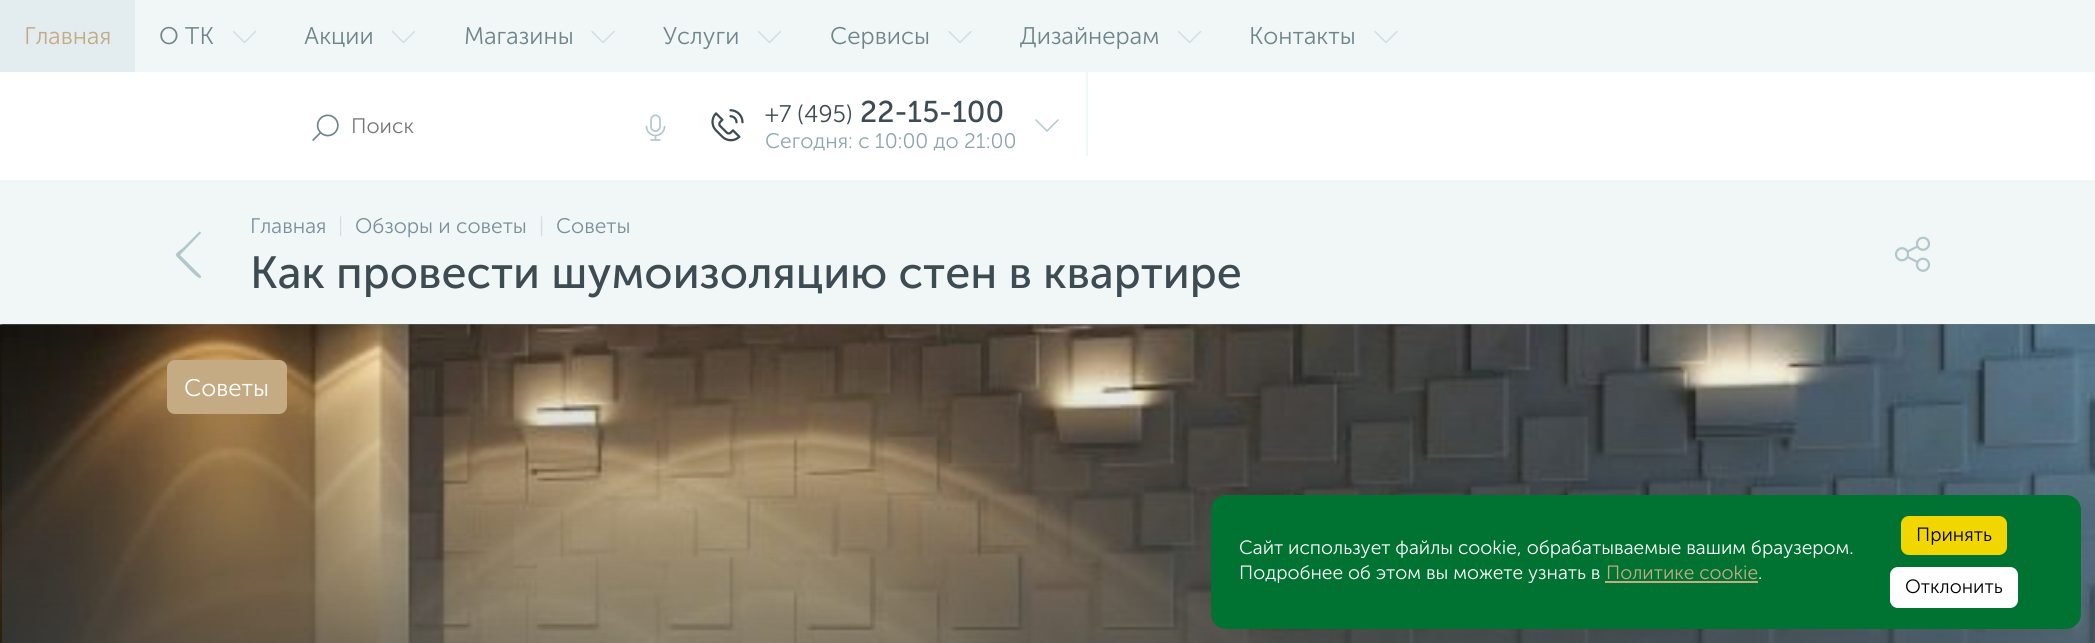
import math
import cairo

surface = cairo.ImageSurface(cairo.FORMAT_RGB24, 2095, 643)
ctx = cairo.Context(surface)
options = cairo.FontOptions()
options.set_hint_metrics(cairo.HINT_METRICS_OFF)
options.set_hint_style(cairo.HINT_STYLE_NONE)
ctx.set_font_options(options)
ctx.set_miter_limit(4)


def set_color(code):
    ctx.set_source_rgb(*(v / 255 for v in bytes.fromhex(code[-6:])))


def draw_text(x, y, s, family, size, color, bold=False, italic=False):
    ctx.select_font_face(family, cairo.FONT_SLANT_ITALIC if italic else cairo.FONT_SLANT_NORMAL, cairo.FONT_WEIGHT_BOLD if bold else cairo.FONT_WEIGHT_NORMAL)
    ctx.set_font_size(size)
    set_color(color)
    ctx.move_to(x, y)
    ctx.show_text(s)


def fill_rect(x, y, w, h, color):
    set_color(color)
    ctx.rectangle(x, y, w, h)
    ctx.fill()


def rounded_rect(x, y, w, h, r):
    ctx.new_sub_path()
    for i, (u, v) in enumerate([(x + w - r, y + h - r), (x + r, y + h - r), (x + r, y + r), (x + w - r, y + r)]):
        ctx.arc(u, v, r, i * math.pi / 2, (i + 1) * math.pi / 2)
    ctx.close_path()


def draw_image(path, x, y, w, h):
    ctx.save()
    ctx.set_source_surface(cairo.ImageSurface.create_from_png(path), x, y)
    ctx.rectangle(x, y, w, h)
    ctx.fill()
    ctx.restore()


set_color("#ffffff")
ctx.paint()
fill_rect(135, 0, 1960, 72, "#f1f6f7")
fill_rect(0, 0, 135, 72, "#e3ecef")
draw_text(24, 44, "Главная", "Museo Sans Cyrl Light", 24, "#c4ab84")
draw_text(159, 44, "О ТК", "Museo Sans Cyrl Light", 24, "#6e858a")
draw_image("assets/img1.png", 232, 30, 25, 14)
draw_text(304, 44, "Акции", "Museo Sans Cyrl Light", 24, "#6e858a")
draw_image("assets/img1.png", 391, 30, 25, 14)
draw_text(464, 44, "Магазины", "Museo Sans Cyrl Light", 24, "#6e858a")
draw_image("assets/img2.png", 591, 31, 24, 12)
draw_text(663, 44, "Услуги", "Museo Sans Cyrl Light", 24, "#6e858a")
draw_image("assets/img1.png", 757, 30, 25, 14)
draw_text(830, 44, "Сервисы", "Museo Sans Cyrl Light", 24, "#6e858a")
draw_image("assets/img2.png", 948, 31, 24, 12)
draw_text(1020, 44, "Дизайнерам", "Museo Sans Cyrl Light", 24, "#6e858a")
draw_image("assets/img1.png", 1177, 30, 25, 14)
draw_text(1249, 44, "Контакты", "Museo Sans Cyrl Light", 24, "#6e858a")
draw_image("assets/img2.png", 1374, 31, 24, 12)
draw_image("assets/img3.png", 312, 114, 27, 27)
draw_text(351, 133, "Поиск", "Museo Sans Cyrl Light", 21, "#757575")
draw_image("assets/img4.png", 645, 114, 21, 27)
draw_image("assets/img5.png", 711, 109, 33, 33)
draw_text(765, 122, "+7 (495)", "Museo Sans Cyrl Light", 24, "#3d4b52")
draw_text(860, 122, "22-15-100", "Museo Sans Cyrl", 30, "#3d4b52")
draw_text(765, 148, "Сегодня: с 10:00 до 21:00", "Museo Sans Cyrl Light", 21, "#8ea6ab")
draw_image("assets/img6.png", 1035, 119, 24, 13)
fill_rect(1086, 72, 2, 84, "#f1f6f7")
fill_rect(0, 180, 2095, 144, "#f1f6f7")
set_color("#b2c7cb")
ctx.new_path()
ctx.move_to(200, 278)
ctx.curve_to(197, 278, 189, 269, 187, 267)
ctx.line_to(180, 260)
ctx.curve_to(173, 253, 175, 255, 184, 247)
ctx.line_to(199, 232)
ctx.curve_to(200, 231, 201, 232, 201, 233)
ctx.line_to(180, 255)
ctx.line_to(201, 276)
ctx.curve_to(201, 277, 201, 278, 200, 278)
ctx.close_path()
ctx.fill()
draw_text(250, 233, "Главная", "Museo Sans Cyrl Light", 21, "#78909c")
draw_text(338, 233, "|", "Museo Sans Cyrl Light", 21, "#d0e0e3")
draw_text(355, 233, "Обзоры и советы", "Museo Sans Cyrl Light", 21, "#78909c")
draw_text(539, 233, "|", "Museo Sans Cyrl Light", 21, "#d0e0e3")
draw_text(556, 233, "Советы", "Museo Sans Cyrl Light", 21, "#78909c")
draw_text(250, 288, "Как провести шумоизоляцию стен в квартире", "Museo Sans Cyrl", 45, "#3d4b52")
draw_image("assets/img7.png", 1894, 236, 37, 36)
fill_rect(2, 324, 2093, 1, "#6e858a")
draw_image("assets/img8.png", 0, 324, 2095, 319)
gradient = cairo.LinearGradient(1049, 324, 1049, 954)
gradient.add_color_stop_rgba(0, 0.239, 0.294, 0.322, 0)
gradient.add_color_stop_rgba(1, 0.239, 0.294, 0.322, 1)
ctx.set_source(gradient)
ctx.rectangle(2, 338, 2093, 305)
ctx.fill()
set_color("#c4ab84")
rounded_rect(167, 360, 120, 54, 8)
ctx.fill()
draw_text(184, 396, "Советы", "Museo Sans Cyrl Light", 24, "#ffffff")
set_color("#007333")
rounded_rect(1211, 495, 870, 134, 15)
ctx.fill()
draw_text(1239, 554, "Сайт использует файлы cookie, обрабатываемые вашим браузером.", "Museo Sans Cyrl Light", 19.2, "#ffffff")
draw_text(1239, 579, "Подробнее об этом вы можете узнать в", "Museo Sans Cyrl Light", 19.2, "#ffffff")
draw_text(1606, 579, "Политике cookie", "Museo Sans Cyrl Light", 19.2, "#c4ab84")
fill_rect(1605, 581, 153, 2, "#c4ab84")
draw_text(1758, 579, ".", "Museo Sans Cyrl Light", 19.2, "#ffffff")
set_color("#f1d600")
rounded_rect(1901, 516, 106, 39, 8)
ctx.fill()
draw_text(1916, 541, "Принять", "Museo Sans Cyrl Light", 19.2, "#000000")
set_color("#ffffff")
rounded_rect(1890, 567, 128, 41, 8)
ctx.fill()
draw_text(1905, 593, "Отклонить", "Museo Sans Cyrl Light", 19.2, "#000000")
surface.write_to_png("output.png")
